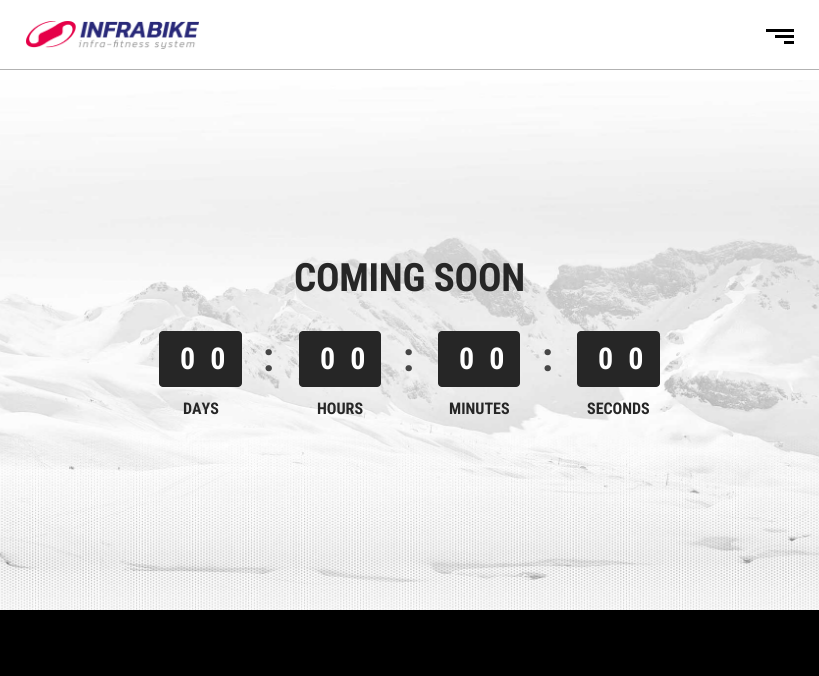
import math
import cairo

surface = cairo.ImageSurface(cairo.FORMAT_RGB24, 819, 676)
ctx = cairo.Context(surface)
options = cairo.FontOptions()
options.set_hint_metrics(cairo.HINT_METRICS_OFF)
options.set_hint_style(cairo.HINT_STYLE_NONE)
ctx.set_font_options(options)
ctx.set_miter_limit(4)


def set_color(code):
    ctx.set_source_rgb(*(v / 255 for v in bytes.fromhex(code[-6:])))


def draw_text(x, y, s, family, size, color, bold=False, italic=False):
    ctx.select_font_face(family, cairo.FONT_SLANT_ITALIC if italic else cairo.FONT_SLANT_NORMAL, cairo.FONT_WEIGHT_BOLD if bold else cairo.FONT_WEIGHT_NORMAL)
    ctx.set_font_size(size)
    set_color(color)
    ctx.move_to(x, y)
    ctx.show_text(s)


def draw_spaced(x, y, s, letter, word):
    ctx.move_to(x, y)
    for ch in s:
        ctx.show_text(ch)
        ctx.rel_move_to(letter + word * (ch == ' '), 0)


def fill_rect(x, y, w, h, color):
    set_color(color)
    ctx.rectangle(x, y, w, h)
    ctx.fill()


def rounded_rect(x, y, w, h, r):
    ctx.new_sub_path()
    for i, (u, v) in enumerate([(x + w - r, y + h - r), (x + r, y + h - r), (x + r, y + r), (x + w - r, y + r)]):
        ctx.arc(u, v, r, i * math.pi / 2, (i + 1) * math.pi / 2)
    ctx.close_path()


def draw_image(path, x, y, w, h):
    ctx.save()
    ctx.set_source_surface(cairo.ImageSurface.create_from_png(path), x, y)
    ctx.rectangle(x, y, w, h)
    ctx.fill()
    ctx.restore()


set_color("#ffffff")
ctx.paint()
fill_rect(0, 69, 819, 1, "#b2b2b2")
draw_image("assets/img1.png", 26, 21, 173, 28)
fill_rect(766, 29, 28, 3, "#000000")
fill_rect(775, 35, 19, 3, "#000000")
fill_rect(784, 41, 10, 3, "#000000")
draw_image("assets/img2.png", 0, 80, 819, 530)
ctx.select_font_face("Roboto Condensed", cairo.FONT_SLANT_NORMAL, cairo.FONT_WEIGHT_BOLD)
ctx.set_font_size(39)
set_color("#262626")
draw_spaced(294, 291, "COMING SOON", -0.25, 0)
rounded_rect(159, 331, 83, 56, 4)
ctx.fill()
ctx.set_font_size(30)
set_color("#ffffff")
draw_spaced(180, 369, "00", 15, 0)
draw_text(263, 371, ":", "Roboto Condensed", 40, "#464646", bold=True)
draw_text(183, 414, "DAYS", "Roboto Condensed", 16, "#262626", bold=True)
rounded_rect(299, 331, 82, 56, 4)
ctx.fill()
ctx.set_font_size(30)
set_color("#ffffff")
draw_spaced(320, 369, "00", 15, 0)
draw_text(403, 371, ":", "Roboto Condensed", 40, "#464646", bold=True)
draw_text(317, 414, "HOURS", "Roboto Condensed", 16, "#262626", bold=True)
rounded_rect(438, 331, 82, 56, 4)
ctx.fill()
ctx.set_font_size(30)
set_color("#ffffff")
draw_spaced(459, 369, "00", 15, 0)
draw_text(542, 371, ":", "Roboto Condensed", 40, "#464646", bold=True)
draw_text(449, 414, "MINUTES", "Roboto Condensed", 16, "#262626", bold=True)
rounded_rect(577, 331, 83, 56, 4)
ctx.fill()
ctx.set_font_size(30)
set_color("#ffffff")
draw_spaced(598, 369, "00", 15, 0)
draw_text(587, 414, "SECONDS", "Roboto Condensed", 16, "#262626", bold=True)
fill_rect(0, 610, 819, 66, "#000000")
surface.write_to_png("output.png")
